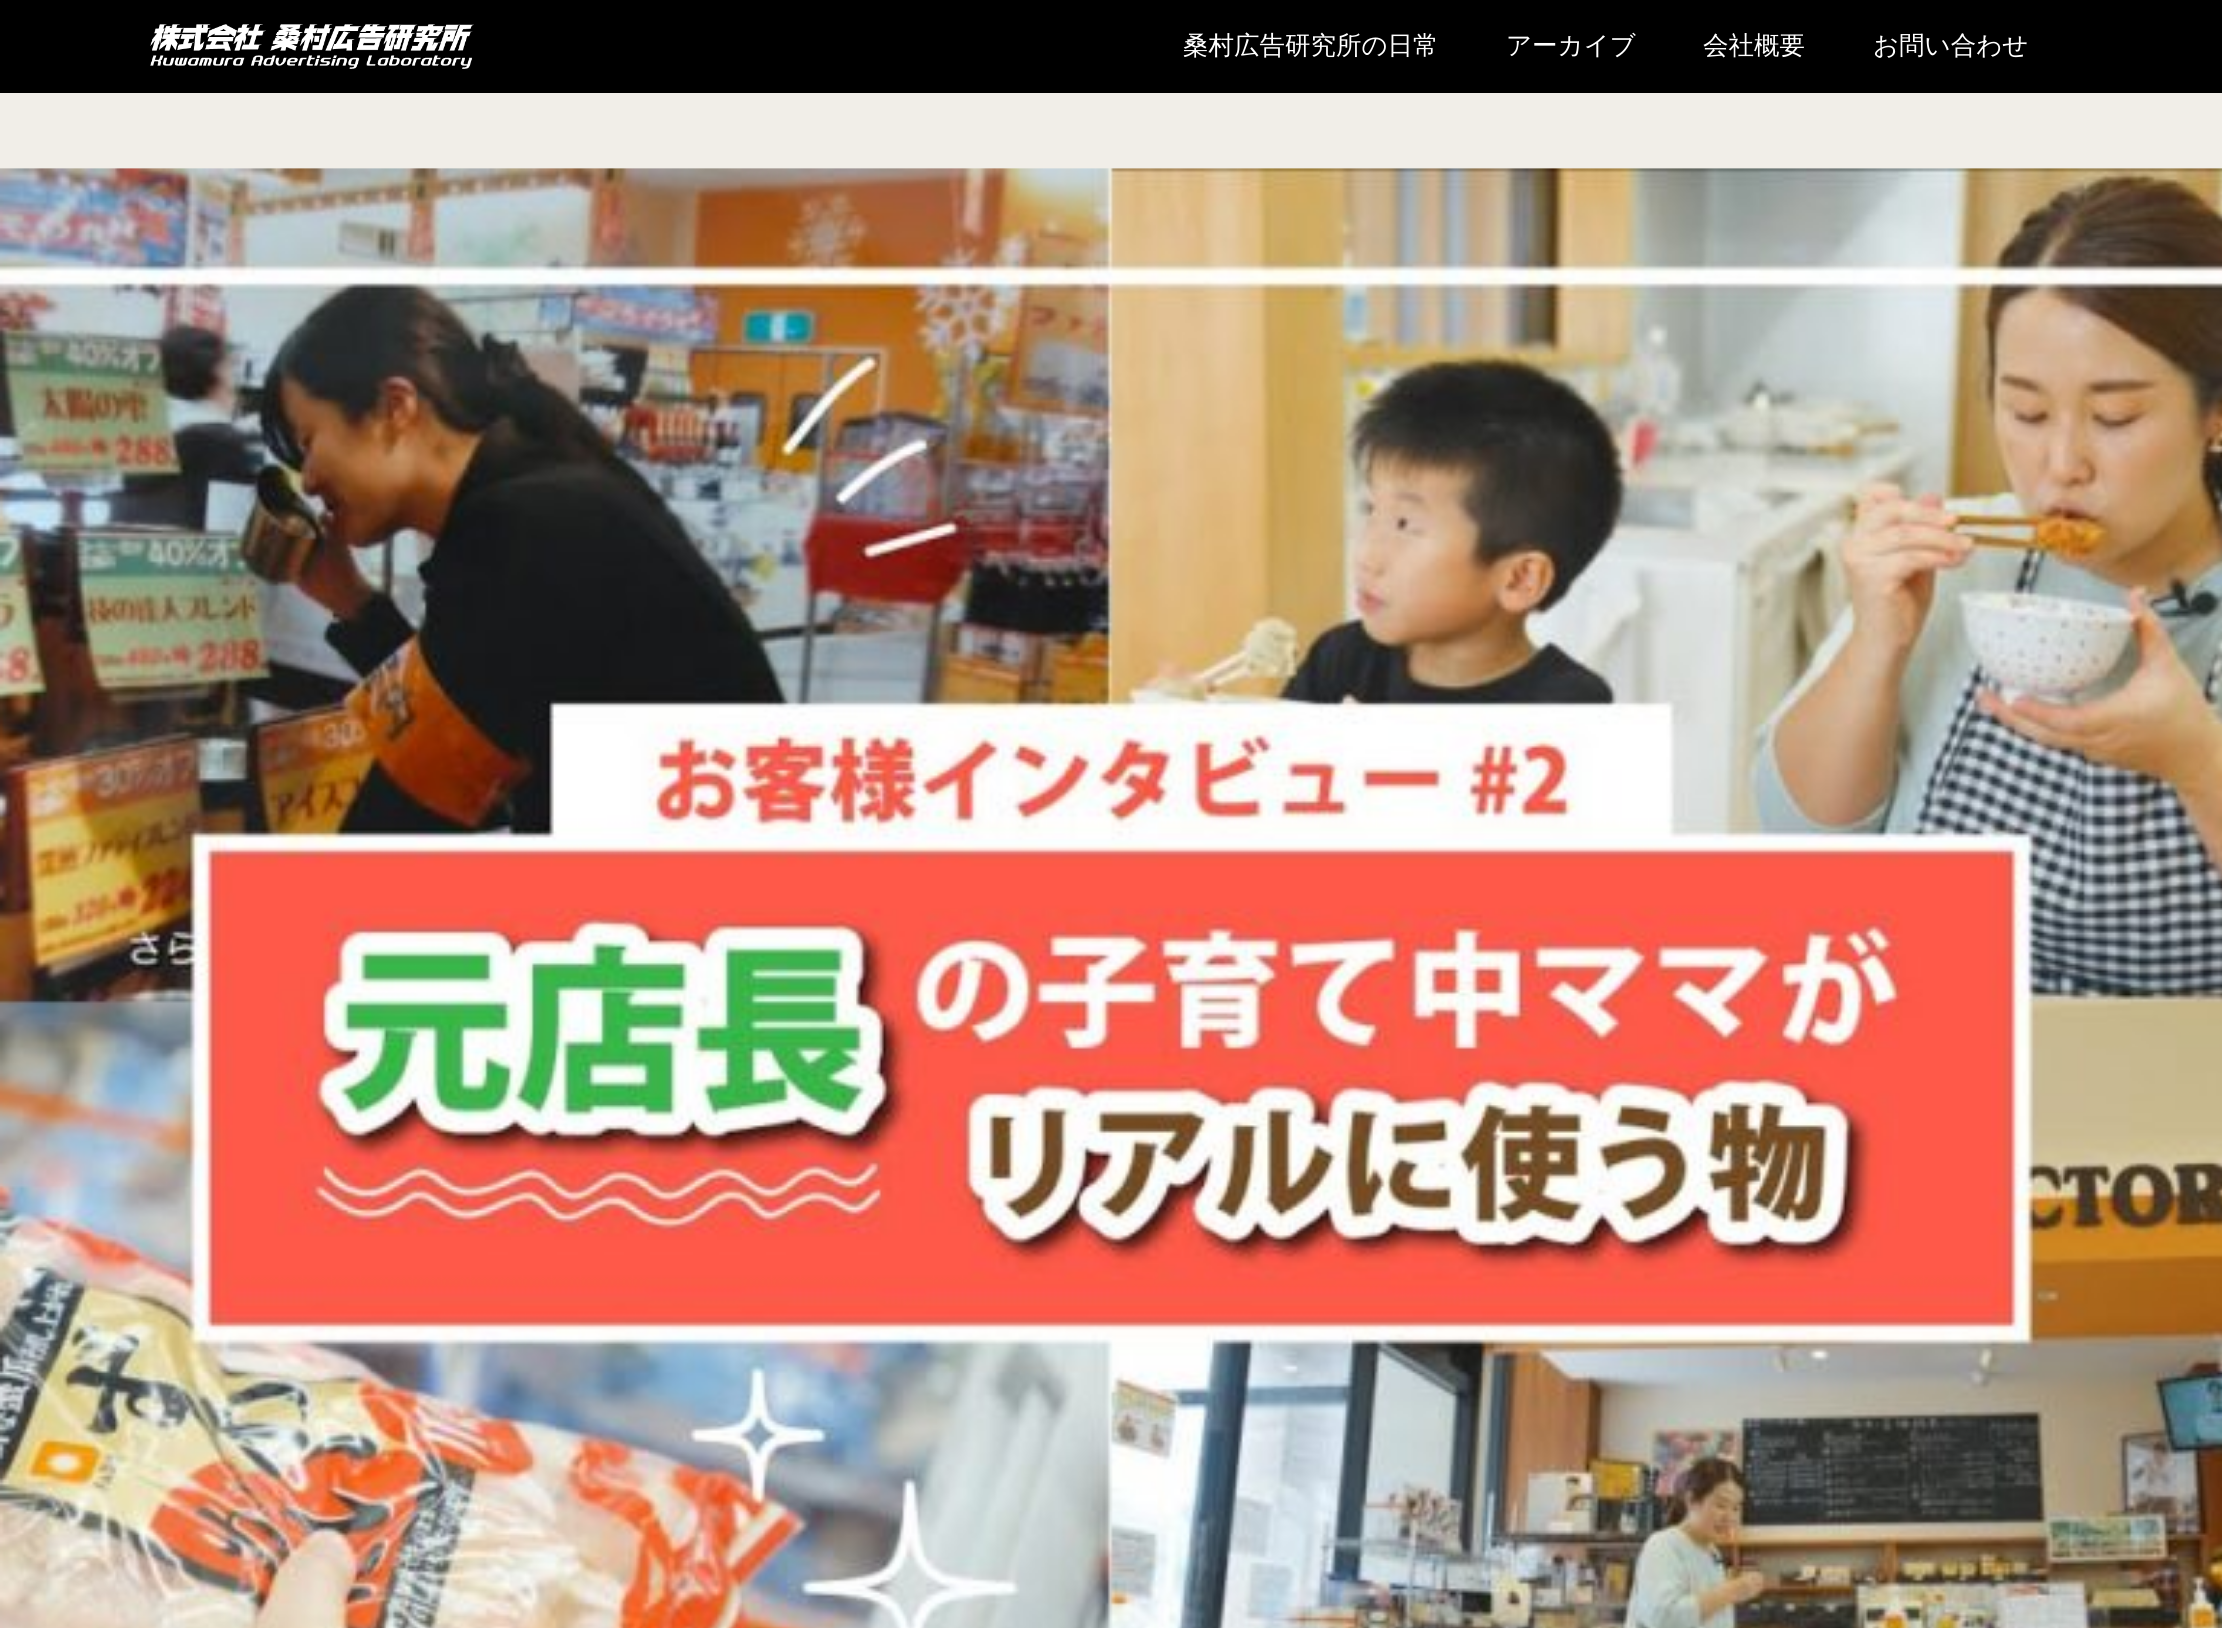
import math
import cairo

surface = cairo.ImageSurface(cairo.FORMAT_RGB24, 2222, 1628)
ctx = cairo.Context(surface)
options = cairo.FontOptions()
options.set_hint_metrics(cairo.HINT_METRICS_OFF)
options.set_hint_style(cairo.HINT_STYLE_NONE)
ctx.set_font_options(options)
ctx.set_miter_limit(4)


def set_color(code):
    ctx.set_source_rgb(*(v / 255 for v in bytes.fromhex(code[-6:])))


def draw_text(x, y, s, family, size, color, bold=False, italic=False):
    ctx.select_font_face(family, cairo.FONT_SLANT_ITALIC if italic else cairo.FONT_SLANT_NORMAL, cairo.FONT_WEIGHT_BOLD if bold else cairo.FONT_WEIGHT_NORMAL)
    ctx.set_font_size(size)
    set_color(color)
    ctx.move_to(x, y)
    ctx.show_text(s)


def fill_rect(x, y, w, h, color):
    set_color(color)
    ctx.rectangle(x, y, w, h)
    ctx.fill()


def draw_image(path, x, y, w, h):
    ctx.save()
    ctx.set_source_surface(cairo.ImageSurface.create_from_png(path), x, y)
    ctx.rectangle(x, y, w, h)
    ctx.fill()
    ctx.restore()


set_color("#000000")
ctx.paint()
draw_image("assets/img1.png", 150, 24, 324, 45)
draw_text(1183, 54, "桑村広告研究所の日常", "WenQuanYi Zen Hei Medium", 25.5, "#ffffff")
draw_text(1506, 54, "アーカイブ", "WenQuanYi Zen Hei Medium", 25.5, "#ffffff")
draw_text(1703, 54, "会社概要", "WenQuanYi Zen Hei Medium", 25.5, "#ffffff")
draw_text(1873, 54, "お問い合わせ", "WenQuanYi Zen Hei Medium", 25.5, "#ffffff")
fill_rect(0, 93, 2222, 76, "#f1eee8")
draw_image("assets/img2.png", 0, 168, 2222, 1460)
surface.write_to_png("output.png")
